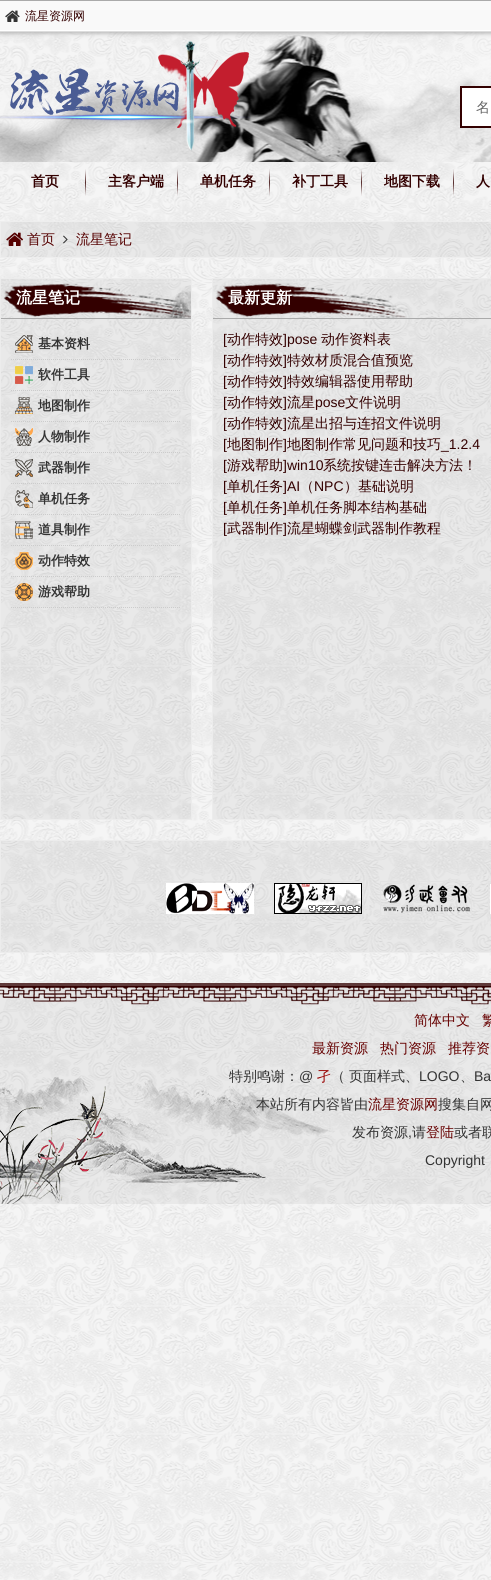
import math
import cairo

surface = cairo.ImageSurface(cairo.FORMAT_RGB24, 491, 1580)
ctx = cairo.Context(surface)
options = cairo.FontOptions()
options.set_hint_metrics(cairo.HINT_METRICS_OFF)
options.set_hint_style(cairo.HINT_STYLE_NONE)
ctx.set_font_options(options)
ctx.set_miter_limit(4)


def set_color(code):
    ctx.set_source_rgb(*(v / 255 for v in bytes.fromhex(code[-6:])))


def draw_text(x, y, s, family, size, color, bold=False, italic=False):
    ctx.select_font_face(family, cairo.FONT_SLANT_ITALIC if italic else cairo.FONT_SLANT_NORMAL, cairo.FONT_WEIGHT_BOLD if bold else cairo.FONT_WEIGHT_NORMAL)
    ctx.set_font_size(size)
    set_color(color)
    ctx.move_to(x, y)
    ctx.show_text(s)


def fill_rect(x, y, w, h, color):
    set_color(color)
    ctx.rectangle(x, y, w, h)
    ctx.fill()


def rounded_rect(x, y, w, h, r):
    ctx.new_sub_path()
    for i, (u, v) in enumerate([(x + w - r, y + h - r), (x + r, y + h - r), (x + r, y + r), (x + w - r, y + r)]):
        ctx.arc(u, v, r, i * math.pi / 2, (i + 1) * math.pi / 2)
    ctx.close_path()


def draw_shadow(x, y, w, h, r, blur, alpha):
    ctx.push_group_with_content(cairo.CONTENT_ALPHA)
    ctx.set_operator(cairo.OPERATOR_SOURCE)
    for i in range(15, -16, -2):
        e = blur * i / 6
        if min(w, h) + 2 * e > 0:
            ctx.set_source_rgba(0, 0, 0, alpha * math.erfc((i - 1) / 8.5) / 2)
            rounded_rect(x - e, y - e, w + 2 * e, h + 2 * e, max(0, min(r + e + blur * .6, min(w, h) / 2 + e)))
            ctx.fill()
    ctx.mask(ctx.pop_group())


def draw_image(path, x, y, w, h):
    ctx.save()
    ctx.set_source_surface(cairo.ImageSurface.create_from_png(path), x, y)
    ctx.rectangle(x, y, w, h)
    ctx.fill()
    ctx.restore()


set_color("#f5f5f5")
ctx.paint()
draw_image("assets/img1.png", 0, 32, 491, 1548)
draw_image("assets/img2.png", 0, 34, 491, 128)
set_color("#aaaaaa")
draw_shadow(-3, -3, 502, 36, 0, 2.5, 1)
ctx.rectangle(-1, -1, 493, 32)
set_color("#dddddd")
ctx.stroke()
ctx.rectangle(-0.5, -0.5, 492, 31)
set_color("#ffffff")
ctx.set_line_width(1)
ctx.stroke()
fill_rect(0, 1, 491, 29, "#f9f9f9")
fill_rect(0, 0, 491, 1, "#aaaaaa")
draw_image("assets/img3.png", 5, 10, 15, 12)
draw_text(25, 20, "流星资源网", "WenQuanYi Zen Hei Medium", 12, "#330000")
draw_image("assets/img4.png", 0, 41, 250, 110)
fill_rect(460, 86, 31, 2, "#330000")
fill_rect(460, 126, 31, 2, "#330000")
fill_rect(460, 86, 2, 42, "#330000")
fill_rect(462, 88, 29, 38, "#ffffff")
draw_text(476, 112, "名", "WenQuanYi Zen Hei Medium", 14, "#666666")
draw_image("assets/img5.png", 85, 169, 1, 27)
draw_text(31, 186, "首页", "WenQuanYi Zen Hei", 14, "#330000", bold=True)
draw_image("assets/img6.png", 177, 169, 1, 27)
draw_text(108, 186, "主客户端", "WenQuanYi Zen Hei", 14, "#330000", bold=True)
draw_image("assets/img7.png", 269, 169, 1, 27)
draw_text(200, 186, "单机任务", "WenQuanYi Zen Hei", 14, "#330000", bold=True)
draw_image("assets/img8.png", 361, 169, 1, 27)
draw_text(292, 186, "补丁工具", "WenQuanYi Zen Hei", 14, "#330000", bold=True)
draw_image("assets/img9.png", 453, 169, 1, 27)
draw_text(384, 186, "地图下载", "WenQuanYi Zen Hei", 14, "#330000", bold=True)
draw_text(476, 186, "人", "WenQuanYi Zen Hei", 14, "#330000", bold=True)
ctx.set_source_rgba(0, 0, 0, 0.05)
ctx.rectangle(0.5, 221.5, 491, 36)
ctx.fill_preserve()
set_color("#eeeeee")
ctx.stroke()
draw_image("assets/img10.png", 6, 232, 17, 14)
draw_text(27, 244, "首页", "WenQuanYi Zen Hei Medium", 14, "#550000")
draw_image("assets/img11.png", 63, 235, 5, 9)
draw_text(76, 244, "流星笔记", "WenQuanYi Zen Hei Medium", 14, "#550000")
ctx.set_source_rgba(0, 0, 0, 0.05)
ctx.rectangle(0.5, 278.5, 191, 541)
ctx.fill_preserve()
set_color("#ececec")
ctx.stroke()
draw_image("assets/img12.png", 3, 283, 188, 35)
fill_rect(1, 318, 190, 1, "#aaaaaa")
draw_text(16, 303, "流星笔记", "WenQuanYi Zen Hei", 16, "#ffffff", bold=True)
ctx.new_path()
ctx.move_to(11, 359.5)
ctx.line_to(181, 359.5)
set_color("#cccccc")
ctx.set_dash([1, 1])
ctx.stroke()
draw_image("assets/img13.png", 15, 335, 18, 18)
draw_text(38, 348, "基本资料", "WenQuanYi Zen Hei", 13, "#333333", bold=True)
ctx.new_path()
ctx.move_to(11, 390.5)
ctx.line_to(181, 390.5)
set_color("#cccccc")
ctx.stroke()
draw_image("assets/img14.png", 15, 366, 18, 18)
draw_text(38, 379, "软件工具", "WenQuanYi Zen Hei", 13, "#333333", bold=True)
ctx.new_path()
ctx.move_to(11, 421.5)
ctx.line_to(181, 421.5)
set_color("#cccccc")
ctx.stroke()
draw_image("assets/img15.png", 15, 397, 18, 17)
draw_text(38, 410, "地图制作", "WenQuanYi Zen Hei", 13, "#333333", bold=True)
ctx.new_path()
ctx.move_to(11, 452.5)
ctx.line_to(181, 452.5)
set_color("#cccccc")
ctx.stroke()
draw_image("assets/img16.png", 15, 428, 18, 18)
draw_text(38, 441, "人物制作", "WenQuanYi Zen Hei", 13, "#333333", bold=True)
ctx.new_path()
ctx.move_to(11, 483.5)
ctx.line_to(181, 483.5)
set_color("#cccccc")
ctx.stroke()
draw_image("assets/img17.png", 15, 459, 18, 18)
draw_text(38, 472, "武器制作", "WenQuanYi Zen Hei", 13, "#333333", bold=True)
ctx.new_path()
ctx.move_to(11, 514.5)
ctx.line_to(181, 514.5)
set_color("#cccccc")
ctx.stroke()
draw_image("assets/img18.png", 15, 490, 18, 18)
draw_text(38, 503, "单机任务", "WenQuanYi Zen Hei", 13, "#333333", bold=True)
ctx.new_path()
ctx.move_to(11, 545.5)
ctx.line_to(181, 545.5)
set_color("#cccccc")
ctx.stroke()
draw_image("assets/img19.png", 15, 521, 18, 18)
draw_text(38, 534, "道具制作", "WenQuanYi Zen Hei", 13, "#333333", bold=True)
ctx.new_path()
ctx.move_to(11, 576.5)
ctx.line_to(181, 576.5)
set_color("#cccccc")
ctx.stroke()
draw_image("assets/img20.png", 15, 552, 18, 18)
draw_text(38, 565, "动作特效", "WenQuanYi Zen Hei", 13, "#333333", bold=True)
ctx.new_path()
ctx.move_to(11, 607.5)
ctx.line_to(181, 607.5)
set_color("#cccccc")
ctx.stroke()
draw_image("assets/img21.png", 15, 583, 18, 18)
draw_text(38, 596, "游戏帮助", "WenQuanYi Zen Hei", 13, "#333333", bold=True)
ctx.set_source_rgba(0, 0, 0, 0.05)
ctx.rectangle(212.5, 278.5, 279, 541)
ctx.fill_preserve()
set_color("#ececec")
ctx.set_dash([])
ctx.stroke()
draw_image("assets/img22.png", 215, 283, 194, 35)
fill_rect(213, 318, 278, 1, "#aaaaaa")
draw_text(228, 303, "最新更新", "WenQuanYi Zen Hei", 16, "#ffffff", bold=True)
draw_text(223, 344, "[", "Liberation Sans", 14, "#330000")
draw_text(227, 344, "动作特效", "WenQuanYi Zen Hei Medium", 14, "#330000")
draw_text(283, 344, "]pose", "Liberation Sans", 14, "#330000")
draw_text(321, 344, "动作资料表", "WenQuanYi Zen Hei Medium", 14, "#330000")
draw_text(223, 365, "[", "Liberation Sans", 14, "#330000")
draw_text(227, 365, "动作特效", "WenQuanYi Zen Hei Medium", 14, "#330000")
draw_text(283, 365, "]", "Liberation Sans", 14, "#330000")
draw_text(287, 365, "特效材质混合值预览", "WenQuanYi Zen Hei Medium", 14, "#330000")
draw_text(223, 386, "[", "Liberation Sans", 14, "#330000")
draw_text(227, 386, "动作特效", "WenQuanYi Zen Hei Medium", 14, "#330000")
draw_text(283, 386, "]", "Liberation Sans", 14, "#330000")
draw_text(287, 386, "特效编辑器使用帮助", "WenQuanYi Zen Hei Medium", 14, "#330000")
draw_text(223, 407, "[", "Liberation Sans", 14, "#330000")
draw_text(227, 407, "动作特效", "WenQuanYi Zen Hei Medium", 14, "#330000")
draw_text(283, 407, "]", "Liberation Sans", 14, "#330000")
draw_text(287, 407, "流星", "WenQuanYi Zen Hei Medium", 14, "#330000")
draw_text(315, 407, "pose", "Liberation Sans", 14, "#330000")
draw_text(345, 407, "文件说明", "WenQuanYi Zen Hei Medium", 14, "#330000")
draw_text(223, 428, "[", "Liberation Sans", 14, "#330000")
draw_text(227, 428, "动作特效", "WenQuanYi Zen Hei Medium", 14, "#330000")
draw_text(283, 428, "]", "Liberation Sans", 14, "#330000")
draw_text(287, 428, "流星出招与连招文件说明", "WenQuanYi Zen Hei Medium", 14, "#330000")
draw_text(223, 449, "[", "Liberation Sans", 14, "#330000")
draw_text(227, 449, "地图制作", "WenQuanYi Zen Hei Medium", 14, "#330000")
draw_text(283, 449, "]", "Liberation Sans", 14, "#330000")
draw_text(287, 449, "地图制作常见问题和技巧", "WenQuanYi Zen Hei Medium", 14, "#330000")
draw_text(441, 449, "_1.2.4", "Liberation Sans", 14, "#330000")
draw_text(223, 470, "[", "Liberation Sans", 14, "#330000")
draw_text(227, 470, "游戏帮助", "WenQuanYi Zen Hei Medium", 14, "#330000")
draw_text(283, 470, "]win10", "Liberation Sans", 14, "#330000")
draw_text(323, 470, "系统按键连击解决方法！", "WenQuanYi Zen Hei Medium", 14, "#330000")
draw_text(223, 491, "[", "Liberation Sans", 14, "#330000")
draw_text(227, 491, "单机任务", "WenQuanYi Zen Hei Medium", 14, "#330000")
draw_text(283, 491, "]AI", "Liberation Sans", 14, "#330000")
draw_text(300, 491, "（", "WenQuanYi Zen Hei Medium", 14, "#330000")
draw_text(314, 491, "NPC", "Liberation Sans", 14, "#330000")
draw_text(344, 491, "）基础说明", "WenQuanYi Zen Hei Medium", 14, "#330000")
draw_text(223, 512, "[", "Liberation Sans", 14, "#330000")
draw_text(227, 512, "单机任务", "WenQuanYi Zen Hei Medium", 14, "#330000")
draw_text(283, 512, "]", "Liberation Sans", 14, "#330000")
draw_text(287, 512, "单机任务脚本结构基础", "WenQuanYi Zen Hei Medium", 14, "#330000")
draw_text(223, 533, "[", "Liberation Sans", 14, "#330000")
draw_text(227, 533, "武器制作", "WenQuanYi Zen Hei Medium", 14, "#330000")
draw_text(283, 533, "]", "Liberation Sans", 14, "#330000")
draw_text(287, 533, "流星蝴蝶剑武器制作教程", "WenQuanYi Zen Hei Medium", 14, "#330000")
ctx.set_source_rgba(0, 0, 0, 0.05)
ctx.rectangle(0.5, 840.5, 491, 112)
ctx.fill_preserve()
set_color("#ececec")
ctx.stroke()
ctx.rectangle(164.5, 881.5, 91, 34)
set_color("#e3e3e3")
ctx.stroke()
ctx.rectangle(272.5, 881.5, 91, 34)
ctx.stroke()
ctx.rectangle(380.5, 881.5, 91, 34)
ctx.stroke()
ctx.rectangle(488.5, 881.5, 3, 34)
ctx.stroke()
draw_image("assets/img23.png", 166, 883, 88, 31)
draw_image("assets/img24.png", 274, 883, 88, 31)
draw_image("assets/img25.png", 383, 884, 87, 29)
fill_rect(490, 884, 1, 30, "#ffffff")
ctx.set_source_rgba(0, 0, 0, 0.05)
ctx.rectangle(0, 983, 491, 221)
ctx.fill()
draw_image("assets/img26.png", 0, 986, 491, 218)
ctx.set_source_rgba(0.2, 0, 0, 0.75)
ctx.rectangle(0, 983, 491, 3)
ctx.fill()
draw_text(414, 1025, "简体中文", "WenQuanYi Zen Hei Medium", 14, "#660000")
draw_text(482, 1025, "繁", "WenQuanYi Zen Hei Medium", 14, "#660000")
draw_text(312, 1053, "最新资源", "WenQuanYi Zen Hei Medium", 14, "#660000")
draw_text(380, 1053, "热门资源", "WenQuanYi Zen Hei Medium", 14, "#660000")
draw_text(448, 1053, "推荐资", "WenQuanYi Zen Hei Medium", 14, "#660000")
draw_text(229, 1081, "特别鸣谢：", "WenQuanYi Zen Hei Medium", 14, "#333333")
draw_text(299, 1081, "@", "Liberation Sans", 14, "#333333")
draw_text(317, 1081, "孑", "WenQuanYi Zen Hei Medium", 14, "#990000")
draw_text(331, 1081, "（", "WenQuanYi Zen Hei Medium", 14, "#333333")
draw_text(349, 1081, "页面样式、", "WenQuanYi Zen Hei Medium", 14, "#333333")
draw_text(419, 1081, "LOGO", "Liberation Sans", 14, "#333333")
draw_text(460, 1081, "、", "WenQuanYi Zen Hei Medium", 14, "#333333")
draw_text(474, 1081, "Ba", "Liberation Sans", 14, "#333333")
draw_text(256, 1109, "本站所有内容皆由", "WenQuanYi Zen Hei Medium", 14, "#333333")
draw_text(368, 1109, "流星资源网", "WenQuanYi Zen Hei Medium", 14, "#660000")
draw_text(438, 1109, "搜集自网", "WenQuanYi Zen Hei Medium", 14, "#333333")
draw_text(352, 1137, "发布资源", "WenQuanYi Zen Hei Medium", 14, "#333333")
draw_text(408, 1137, ",", "Liberation Sans", 14, "#333333")
draw_text(412, 1137, "请", "WenQuanYi Zen Hei Medium", 14, "#333333")
draw_text(426, 1137, "登陆", "WenQuanYi Zen Hei Medium", 14, "#660000")
draw_text(454, 1137, "或者联", "WenQuanYi Zen Hei Medium", 14, "#333333")
draw_text(425, 1165, "Copyright", "Liberation Sans", 14, "#333333")
surface.write_to_png("output.png")
